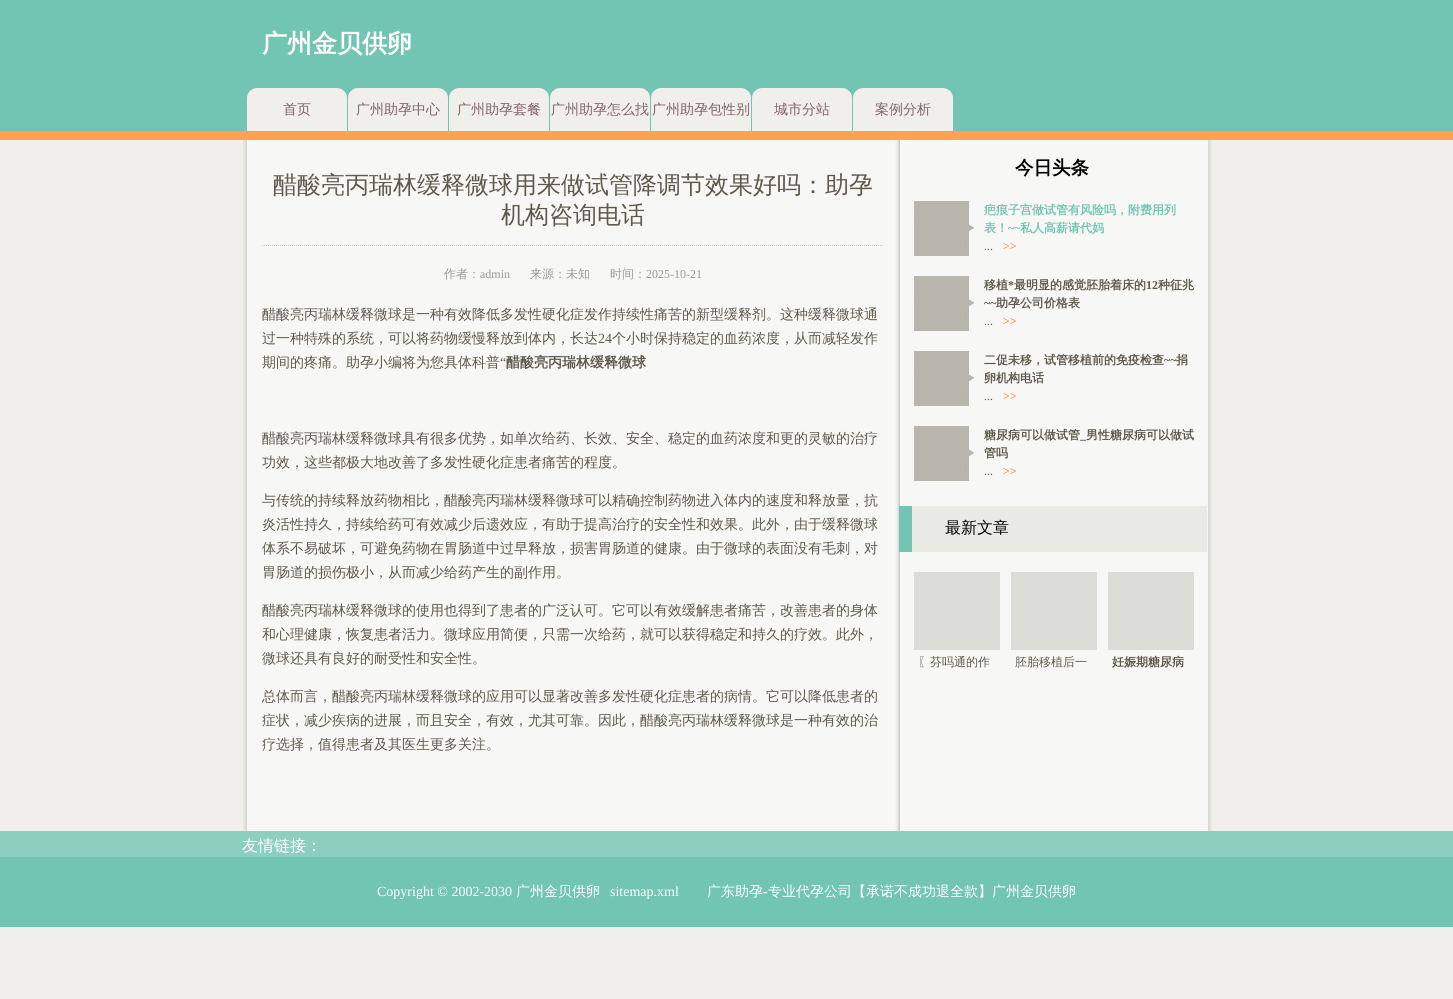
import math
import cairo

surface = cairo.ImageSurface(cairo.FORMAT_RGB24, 1453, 999)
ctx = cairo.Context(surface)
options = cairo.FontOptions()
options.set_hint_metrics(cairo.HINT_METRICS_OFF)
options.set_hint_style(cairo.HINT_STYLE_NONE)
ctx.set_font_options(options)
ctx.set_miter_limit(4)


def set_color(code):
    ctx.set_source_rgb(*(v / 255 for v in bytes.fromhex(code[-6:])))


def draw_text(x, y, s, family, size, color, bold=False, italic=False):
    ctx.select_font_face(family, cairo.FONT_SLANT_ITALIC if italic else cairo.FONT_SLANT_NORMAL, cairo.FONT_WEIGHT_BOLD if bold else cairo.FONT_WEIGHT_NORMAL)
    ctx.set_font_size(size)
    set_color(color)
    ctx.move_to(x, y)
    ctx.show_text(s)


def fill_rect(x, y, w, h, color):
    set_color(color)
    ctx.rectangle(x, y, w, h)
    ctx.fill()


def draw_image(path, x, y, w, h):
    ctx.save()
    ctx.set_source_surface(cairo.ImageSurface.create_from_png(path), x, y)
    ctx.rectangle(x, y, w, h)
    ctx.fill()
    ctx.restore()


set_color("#f0efea")
ctx.paint()
draw_image("assets/img1.png", 0, 0, 1453, 140)
draw_text(262, 52, "广州金贝供卵", "WenQuanYi Zen Hei", 25, "#ffffff", bold=True)
draw_image("assets/img2.png", 247, 88, 100, 43)
draw_text(283, 114, "首页", "WenQuanYi Zen Hei Medium", 14, "#846464")
draw_image("assets/img2.png", 348, 88, 100, 43)
draw_text(356, 114, "广州助孕中心", "WenQuanYi Zen Hei Medium", 14, "#846464")
draw_image("assets/img2.png", 449, 88, 100, 43)
draw_text(457, 114, "广州助孕套餐", "WenQuanYi Zen Hei Medium", 14, "#846464")
draw_image("assets/img2.png", 550, 88, 100, 43)
draw_text(551, 114, "广州助孕怎么找", "WenQuanYi Zen Hei Medium", 14, "#846464")
draw_image("assets/img2.png", 651, 88, 100, 43)
draw_text(652, 114, "广州助孕包性别", "WenQuanYi Zen Hei Medium", 14, "#846464")
draw_image("assets/img2.png", 752, 88, 100, 43)
draw_text(774, 114, "城市分站", "WenQuanYi Zen Hei Medium", 14, "#846464")
draw_image("assets/img2.png", 853, 88, 100, 43)
draw_text(875, 114, "案例分析", "WenQuanYi Zen Hei Medium", 14, "#846464")
draw_image("assets/img3.png", 243, 140, 969, 691)
ctx.new_path()
ctx.move_to(262, 245.5)
ctx.line_to(884, 245.5)
set_color("#cccccc")
ctx.set_line_width(1)
ctx.set_dash([1, 1])
ctx.stroke()
draw_text(273, 193, "醋酸亮丙瑞林缓释微球用来做试管降调节效果好吗：助孕", "WenQuanYi Zen Hei Medium", 24, "#5f594b")
draw_text(501, 223, "机构咨询电话", "WenQuanYi Zen Hei Medium", 24, "#5f594b")
draw_text(444, 278, "作者：", "WenQuanYi Zen Hei Medium", 12, "#999999")
draw_text(480, 278, "admin", "Liberation Serif", 12, "#999999")
draw_text(530, 278, "来源：未知", "WenQuanYi Zen Hei Medium", 12, "#999999")
draw_text(610, 278, "时间：", "WenQuanYi Zen Hei Medium", 12, "#999999")
draw_text(646, 278, "2025-10-21", "Liberation Serif", 12, "#999999")
draw_text(262, 319, "醋酸亮丙瑞林缓释微球是一种有效降低多发性硬化症发作持续性痛苦的新型缓释剂。这种缓释微球通", "WenQuanYi Zen Hei Medium", 14, "#5f594b")
draw_text(262, 343, "过一种特殊的系统，可以将药物缓慢释放到体内，长达", "WenQuanYi Zen Hei Medium", 14, "#5f594b")
draw_text(598, 343, "24", "Liberation Serif", 14, "#5f594b")
draw_text(612, 343, "个小时保持稳定的血药浓度，从而减轻发作", "WenQuanYi Zen Hei Medium", 14, "#5f594b")
draw_text(262, 367, "期间的疼痛。助孕小编将为您具体科普", "WenQuanYi Zen Hei Medium", 14, "#5f594b")
draw_text(500, 367, "“", "Liberation Serif", 14, "#5f594b")
draw_text(506, 367, "醋酸亮丙瑞林缓释微球", "WenQuanYi Zen Hei", 14, "#5f594b", bold=True)
draw_text(262, 443, "醋酸亮丙瑞林缓释微球具有很多优势，如单次给药、长效、安全、稳定的血药浓度和更的灵敏的治疗", "WenQuanYi Zen Hei Medium", 14, "#5f594b")
draw_text(262, 467, "功效，这些都极大地改善了多发性硬化症患者痛苦的程度。", "WenQuanYi Zen Hei Medium", 14, "#5f594b")
draw_text(262, 505, "与传统的持续释放药物相比，醋酸亮丙瑞林缓释微球可以精确控制药物进入体内的速度和释放量，抗", "WenQuanYi Zen Hei Medium", 14, "#5f594b")
draw_text(262, 529, "炎活性持久，持续给药可有效减少后遗效应，有助于提高治疗的安全性和效果。此外，由于缓释微球", "WenQuanYi Zen Hei Medium", 14, "#5f594b")
draw_text(262, 553, "体系不易破坏，可避免药物在胃肠道中过早释放，损害胃肠道的健康。由于微球的表面没有毛刺，对", "WenQuanYi Zen Hei Medium", 14, "#5f594b")
draw_text(262, 577, "胃肠道的损伤极小，从而减少给药产生的副作用。", "WenQuanYi Zen Hei Medium", 14, "#5f594b")
draw_text(262, 615, "醋酸亮丙瑞林缓释微球的使用也得到了患者的广泛认可。它可以有效缓解患者痛苦，改善患者的身体", "WenQuanYi Zen Hei Medium", 14, "#5f594b")
draw_text(262, 639, "和心理健康，恢复患者活力。微球应用简便，只需一次给药，就可以获得稳定和持久的疗效。此外，", "WenQuanYi Zen Hei Medium", 14, "#5f594b")
draw_text(262, 663, "微球还具有良好的耐受性和安全性。", "WenQuanYi Zen Hei Medium", 14, "#5f594b")
draw_text(262, 701, "总体而言，醋酸亮丙瑞林缓释微球的应用可以显著改善多发性硬化症患者的病情。它可以降低患者的", "WenQuanYi Zen Hei Medium", 14, "#5f594b")
draw_text(262, 725, "症状，减少疾病的进展，而且安全，有效，尤其可靠。因此，醋酸亮丙瑞林缓释微球是一种有效的治", "WenQuanYi Zen Hei Medium", 14, "#5f594b")
draw_text(262, 749, "疗选择，值得患者及其医生更多关注。", "WenQuanYi Zen Hei Medium", 14, "#5f594b")
draw_text(1015, 174, "今日头条", "WenQuanYi Zen Hei", 18.5, "#000000", bold=True)
draw_image("assets/img4.png", 914, 201, 60, 55)
draw_text(984, 214, "疤痕子宫做试管有风险吗，附费用列", "WenQuanYi Zen Hei", 12, "#72c5b3", bold=True)
draw_text(984, 232, "表！", "WenQuanYi Zen Hei", 12, "#72c5b3", bold=True)
draw_text(1008, 232, "~~", "Liberation Serif", 12, "#72c5b3", bold=True)
draw_text(1020, 232, "私人高薪请代妈", "WenQuanYi Zen Hei", 12, "#72c5b3", bold=True)
draw_text(1003, 250, ">>", "Liberation Serif", 12, "#ff6600")
draw_text(984, 250, "...", "Liberation Serif", 12, "#5f594b")
draw_image("assets/img4.png", 914, 276, 60, 55)
draw_text(984, 289, "移植", "WenQuanYi Zen Hei", 12, "#5f594b", bold=True)
draw_text(1008, 289, "*", "Liberation Serif", 12, "#5f594b", bold=True)
draw_text(1014, 289, "最明显的感觉胚胎着床的", "WenQuanYi Zen Hei", 12, "#5f594b", bold=True)
draw_text(1146, 289, "12", "Liberation Serif", 12, "#5f594b", bold=True)
draw_text(1158, 289, "种征兆", "WenQuanYi Zen Hei", 12, "#5f594b", bold=True)
draw_text(984, 307, "~~", "Liberation Serif", 12, "#5f594b", bold=True)
draw_text(996, 307, "助孕公司价格表", "WenQuanYi Zen Hei", 12, "#5f594b", bold=True)
draw_text(1003, 325, ">>", "Liberation Serif", 12, "#ff6600")
draw_text(984, 325, "...", "Liberation Serif", 12, "#5f594b")
draw_image("assets/img4.png", 914, 351, 60, 55)
draw_text(984, 364, "二促未移，试管移植前的免疫检查", "WenQuanYi Zen Hei", 12, "#5f594b", bold=True)
draw_text(1164, 364, "~~", "Liberation Serif", 12, "#5f594b", bold=True)
draw_text(1176, 364, "捐", "WenQuanYi Zen Hei", 12, "#5f594b", bold=True)
draw_text(984, 382, "卵机构电话", "WenQuanYi Zen Hei", 12, "#5f594b", bold=True)
draw_text(1003, 400, ">>", "Liberation Serif", 12, "#ff6600")
draw_text(984, 400, "...", "Liberation Serif", 12, "#5f594b")
draw_image("assets/img4.png", 914, 426, 60, 55)
draw_text(984, 439, "糖尿病可以做试管", "WenQuanYi Zen Hei", 12, "#5f594b", bold=True)
draw_text(1080, 439, "_", "Liberation Serif", 12, "#5f594b", bold=True)
draw_text(1086, 439, "男性糖尿病可以做试", "WenQuanYi Zen Hei", 12, "#5f594b", bold=True)
draw_text(984, 457, "管吗", "WenQuanYi Zen Hei", 12, "#5f594b", bold=True)
draw_text(1003, 475, ">>", "Liberation Serif", 12, "#ff6600")
draw_text(984, 475, "...", "Liberation Serif", 12, "#5f594b")
draw_image("assets/img5.png", 899, 506, 308, 46)
draw_text(945, 533, "最新文章", "WenQuanYi Zen Hei Medium", 16, "#000000")
fill_rect(914, 572, 86, 78, "#ddddd7")
draw_text(918, 666, "〖芬吗通的作", "WenQuanYi Zen Hei Medium", 12, "#5f594b")
fill_rect(1011, 572, 86, 78, "#ddddd7")
draw_text(1015, 666, "胚胎移植后一", "WenQuanYi Zen Hei Medium", 12, "#5f594b")
fill_rect(1108, 572, 86, 78, "#ddddd7")
draw_text(1112, 666, "妊娠期糖尿病", "WenQuanYi Zen Hei", 12, "#5f594b", bold=True)
fill_rect(0, 831, 1453, 26, "#8dcfbf")
draw_text(242, 851, "友情链接：", "WenQuanYi Zen Hei Medium", 16, "#ffffff")
fill_rect(0, 857, 1453, 70, "#72c5b3")
draw_text(377, 896, "Copyright © 2002-2030", "Liberation Serif", 14, "#ffffff")
draw_text(516, 896, "广州金贝供卵", "WenQuanYi Zen Hei Medium", 14, "#ffffff")
draw_text(610, 896, "sitemap.xml", "Liberation Serif", 14, "#ffffff")
draw_text(707, 896, "广东助孕", "WenQuanYi Zen Hei Medium", 14, "#ffffff")
draw_text(763, 896, "-", "Liberation Serif", 14, "#ffffff")
draw_text(768, 896, "专业代孕公司【承诺不成功退全款】广州金贝供卵", "WenQuanYi Zen Hei Medium", 14, "#ffffff")
surface.write_to_png("output.png")
